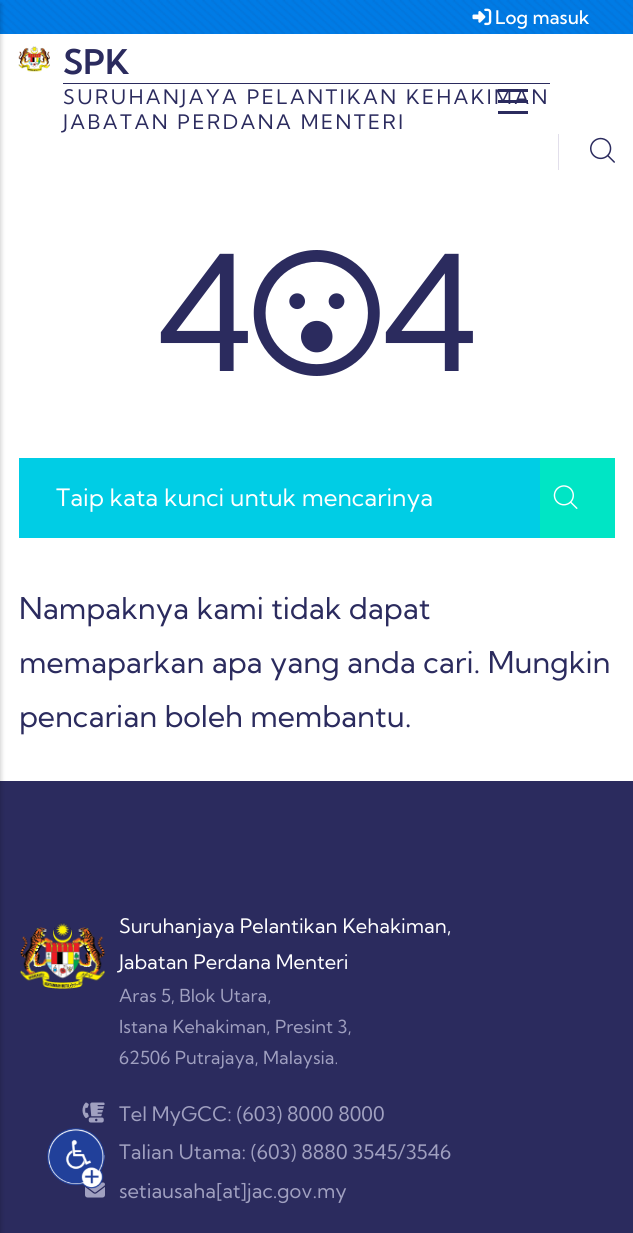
import math
import cairo

surface = cairo.ImageSurface(cairo.FORMAT_RGB24, 633, 1233)
ctx = cairo.Context(surface)
options = cairo.FontOptions()
options.set_hint_metrics(cairo.HINT_METRICS_OFF)
options.set_hint_style(cairo.HINT_STYLE_NONE)
ctx.set_font_options(options)
ctx.set_miter_limit(4)


def set_color(code):
    ctx.set_source_rgb(*(v / 255 for v in bytes.fromhex(code[-6:])))


def draw_text(x, y, s, family, size, color, bold=False, italic=False):
    ctx.select_font_face(family, cairo.FONT_SLANT_ITALIC if italic else cairo.FONT_SLANT_NORMAL, cairo.FONT_WEIGHT_BOLD if bold else cairo.FONT_WEIGHT_NORMAL)
    ctx.set_font_size(size)
    set_color(color)
    ctx.move_to(x, y)
    ctx.show_text(s)


def draw_spaced(x, y, s, letter, word):
    ctx.move_to(x, y)
    for ch in s:
        ctx.show_text(ch)
        ctx.rel_move_to(letter + word * (ch == ' '), 0)


def fill_rect(x, y, w, h, color):
    set_color(color)
    ctx.rectangle(x, y, w, h)
    ctx.fill()


def rounded_rect(x, y, w, h, r):
    ctx.new_sub_path()
    for i, (u, v) in enumerate([(x + w - r, y + h - r), (x + r, y + h - r), (x + r, y + r), (x + w - r, y + r)]):
        ctx.arc(u, v, r, i * math.pi / 2, (i + 1) * math.pi / 2)
    ctx.close_path()


def draw_shadow(x, y, w, h, r, blur, alpha):
    ctx.push_group_with_content(cairo.CONTENT_ALPHA)
    ctx.set_operator(cairo.OPERATOR_SOURCE)
    for i in range(15, -16, -2):
        e = blur * i / 6
        if min(w, h) + 2 * e > 0:
            ctx.set_source_rgba(0, 0, 0, alpha * math.erfc((i - 1) / 8.5) / 2)
            rounded_rect(x - e, y - e, w + 2 * e, h + 2 * e, max(0, min(r + e + blur * .6, min(w, h) / 2 + e)))
            ctx.fill()
    ctx.mask(ctx.pop_group())


def draw_image(path, x, y, w, h):
    ctx.save()
    ctx.set_source_surface(cairo.ImageSurface.create_from_png(path), x, y)
    ctx.rectangle(x, y, w, h)
    ctx.fill()
    ctx.restore()


set_color("#ffffff")
ctx.paint()
fill_rect(0, 0, 633, 34, "#007be5")
draw_image("assets/img1.png", 0, 0, 633, 34)
draw_image("assets/img2.png", 472, 8, 20, 18)
draw_text(495, 24, "Log masuk", "Kumbh Sans Medium", 18.75, "#ffffff")
fill_rect(0, 781, 633, 452, "#2b2b5e")
set_color("#000000")
draw_shadow(-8, 4, 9, 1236, 0, 2.5, 0.2)
fill_rect(498, 89, 30, 3, "#2b2b5e")
fill_rect(498, 100, 30, 3, "#2b2b5e")
fill_rect(498, 111, 30, 3, "#2b2b5e")
fill_rect(558, 134, 1, 36, "#e2dfeb")
draw_image("assets/img3.png", 590, 137, 25, 26)
draw_image("assets/img4.png", 18, 46, 32, 26)
draw_text(63, 74, "SPK", "Kumbh Sans SemiBold", 34, "#2b2b5e")
fill_rect(63, 83, 487, 1, "#2b2b5e")
ctx.select_font_face("Kumbh Sans")
ctx.set_font_size(20)
draw_spaced(63, 104, "SURUHANJAYA PELANTIKAN KEHAKIMAN", 2.5, 0)
draw_spaced(63, 129, "JABATAN PERDANA MENTERI", 2.5, 0)
draw_text(155, 371, "4", "Kumbh Sans", 160, "#2b2b5e")
draw_image("assets/img5.png", 253, 250, 127, 126)
draw_text(380, 371, "4", "Kumbh Sans", 160, "#2b2b5e")
fill_rect(19, 458, 521, 80, "#00cde5")
draw_text(56, 506, "Taip kata kunci untuk mencarinya", "Kumbh Sans", 24, "#ffffff")
fill_rect(540, 458, 75, 80, "#00e5c5")
draw_image("assets/img6.png", 553, 485, 25, 24)
draw_text(19, 619, "Nampaknya kami tidak dapat", "Kumbh Sans", 30, "#2b2b5e")
draw_text(19, 673, "memaparkan apa yang anda cari. Mungkin", "Kumbh Sans", 30, "#2b2b5e")
draw_text(19, 727, "pencarian boleh membantu.", "Kumbh Sans", 30, "#2b2b5e")
draw_image("assets/img7.png", 20, 922, 85, 67)
draw_text(119, 933, "Suruhanjaya Pelantikan Kehakiman,", "Kumbh Sans", 20, "#ffffff")
draw_text(119, 969, "Jabatan Perdana Menteri", "Kumbh Sans", 20, "#ffffff")
draw_text(119, 1002, "Aras 5, Blok Utara,", "Kumbh Sans", 18, "#a0a0c0")
draw_text(119, 1033, "Istana Kehakiman, Presint 3,", "Kumbh Sans", 18, "#a0a0c0")
draw_text(119, 1064, "62506 Putrajaya, Malaysia.", "Kumbh Sans", 18, "#a0a0c0")
draw_image("assets/img8.png", 82, 1102, 23, 21)
draw_text(119, 1121, "Tel MyGCC: (603) 8000 8000", "Kumbh Sans", 20, "#a0a0c0")
draw_image("assets/img9.png", 103, 1154, 2, 8)
draw_text(119, 1159, "Talian Utama: (603) 8880 3545/3546", "Kumbh Sans", 20, "#a0a0c0")
draw_image("assets/img10.png", 85, 1182, 20, 16)
draw_text(119, 1198, "setiausaha[at]jac.gov.my", "Kumbh Sans", 20, "#a0a0c0")
draw_image("assets/img11.png", 47, 1128, 58, 61)
surface.write_to_png("output.png")
